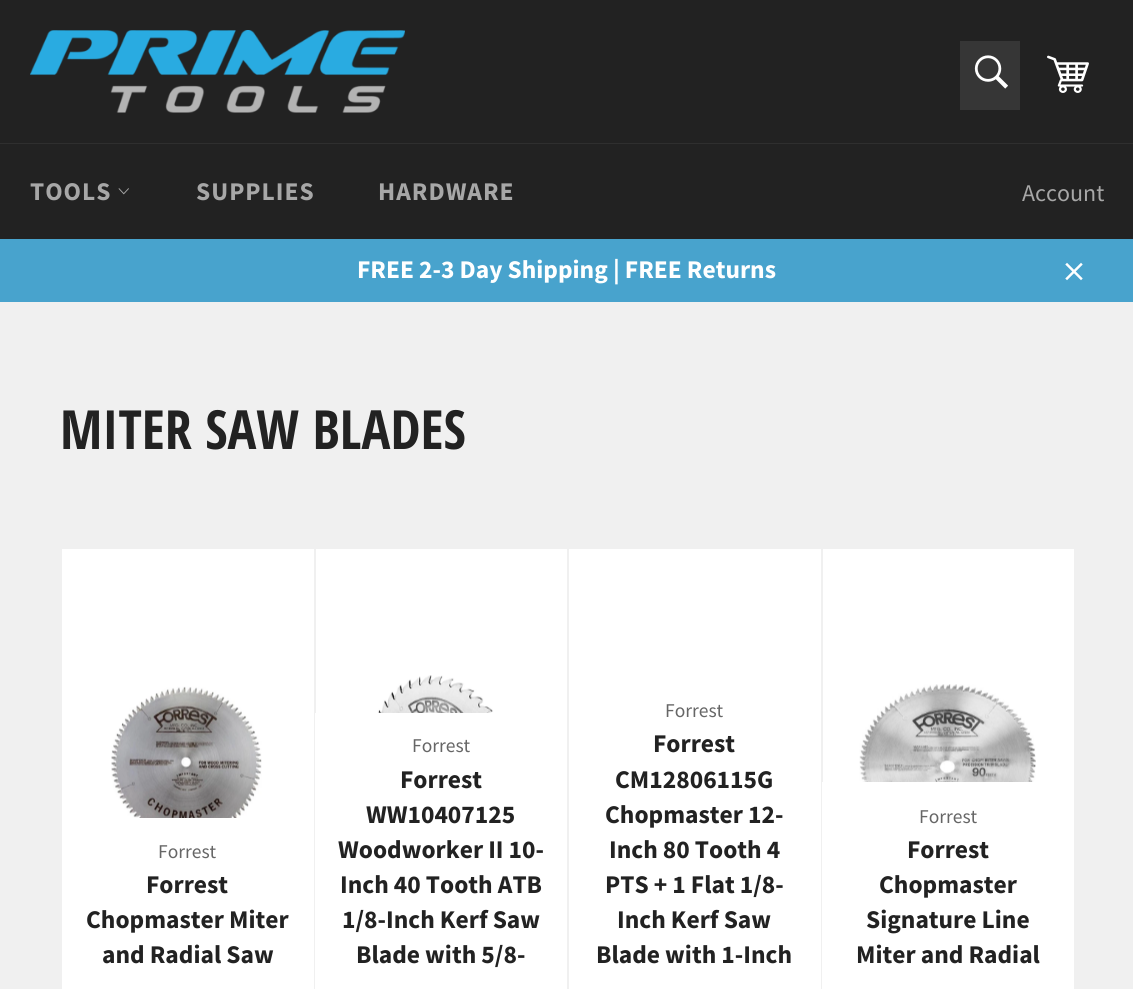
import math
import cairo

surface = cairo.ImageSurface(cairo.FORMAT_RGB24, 1133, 989)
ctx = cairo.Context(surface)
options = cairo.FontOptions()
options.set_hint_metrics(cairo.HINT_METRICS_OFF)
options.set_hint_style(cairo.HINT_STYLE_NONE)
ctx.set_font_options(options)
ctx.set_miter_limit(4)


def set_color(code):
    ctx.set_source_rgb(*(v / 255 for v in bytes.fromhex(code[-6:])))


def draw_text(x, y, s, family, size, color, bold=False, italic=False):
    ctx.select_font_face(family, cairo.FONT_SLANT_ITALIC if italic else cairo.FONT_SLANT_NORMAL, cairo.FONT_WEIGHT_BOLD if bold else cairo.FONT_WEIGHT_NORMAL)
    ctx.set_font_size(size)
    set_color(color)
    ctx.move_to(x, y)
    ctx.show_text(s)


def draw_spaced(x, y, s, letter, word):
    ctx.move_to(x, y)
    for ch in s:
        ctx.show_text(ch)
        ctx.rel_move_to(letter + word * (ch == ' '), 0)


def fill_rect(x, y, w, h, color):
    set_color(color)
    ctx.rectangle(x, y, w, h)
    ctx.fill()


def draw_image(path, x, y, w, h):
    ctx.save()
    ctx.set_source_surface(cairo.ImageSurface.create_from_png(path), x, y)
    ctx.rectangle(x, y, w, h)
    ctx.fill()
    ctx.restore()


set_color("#f0f0f0")
ctx.paint()
fill_rect(0, 0, 1133, 143, "#222222")
draw_image("assets/img1.png", 30, 30, 375, 83)
fill_rect(960, 41, 60, 69, "#363636")
draw_image("assets/img2.png", 974, 55, 34, 34)
draw_image("assets/img3.png", 1047, 55, 42, 38)
fill_rect(0, 143, 1133, 1, "#2f2f2f")
fill_rect(0, 144, 1133, 95, "#222222")
ctx.select_font_face("Source Sans Pro", cairo.FONT_SLANT_NORMAL, cairo.FONT_WEIGHT_BOLD)
ctx.set_font_size(25.5)
set_color("#a7a7a7")
draw_spaced(30, 200, "TOOLS", 1, 0)
draw_image("assets/img4.png", 118, 188, 11, 7)
draw_spaced(196, 200, "SUPPLIES", 1, 0)
draw_spaced(378, 200, "HARDWARE", 1, 0)
draw_text(1022, 201, "Account", "Source Sans Pro", 24, "#a7a7a7")
fill_rect(0, 239, 1133, 63, "#48a3cd")
draw_text(357, 278, "FREE 2-3 Day Shipping | FREE Returns", "Source Sans Pro", 25.5, "#ffffff", bold=True)
draw_image("assets/img5.png", 1065, 262, 18, 19)
draw_text(60, 449, "MITER SAW BLADES", "Open Sans Condensed", 54, "#222222", bold=True)
fill_rect(62, 549, 252, 440, "#ffffff")
draw_image("assets/img6.png", 111, 686, 151, 132)
draw_text(158, 858, "Forrest", "Source Sans Pro", 19.5, "#666666")
draw_text(146, 893, "Forrest", "Source Sans Pro", 25.5, "#222222", bold=True)
draw_text(86, 928, "Chopmaster Miter", "Source Sans Pro", 25.5, "#222222", bold=True)
draw_text(102, 963, "and Radial Saw", "Source Sans Pro", 25.5, "#222222", bold=True)
fill_rect(316, 549, 251, 164, "#ffffff")
draw_image("assets/img7.png", 369, 675, 142, 38)
fill_rect(315, 713, 252, 276, "#ffffff")
draw_text(412, 752, "Forrest", "Source Sans Pro", 19.5, "#666666")
draw_text(400, 788, "Forrest", "Source Sans Pro", 25.5, "#222222", bold=True)
draw_text(366, 823, "WW10407125", "Source Sans Pro", 25.5, "#222222", bold=True)
draw_text(338, 858, "Woodworker II 10-", "Source Sans Pro", 25.5, "#222222", bold=True)
draw_text(340, 893, "Inch 40 Tooth ATB", "Source Sans Pro", 25.5, "#222222", bold=True)
draw_text(342, 928, "1/8-Inch Kerf Saw", "Source Sans Pro", 25.5, "#222222", bold=True)
draw_text(356, 963, "Blade with 5/8-", "Source Sans Pro", 25.5, "#222222", bold=True)
fill_rect(569, 549, 252, 440, "#ffffff")
draw_text(665, 717, "Forrest", "Source Sans Pro", 19.5, "#666666")
draw_text(653, 752, "Forrest", "Source Sans Pro", 25.5, "#222222", bold=True)
draw_text(615, 788, "CM12806115G", "Source Sans Pro", 25.5, "#222222", bold=True)
draw_text(605, 823, "Chopmaster 12-", "Source Sans Pro", 25.5, "#222222", bold=True)
draw_text(609, 858, "Inch 80 Tooth 4", "Source Sans Pro", 25.5, "#222222", bold=True)
draw_text(605, 893, "PTS + 1 Flat 1/8-", "Source Sans Pro", 25.5, "#222222", bold=True)
draw_text(617, 928, "Inch Kerf Saw", "Source Sans Pro", 25.5, "#222222", bold=True)
draw_text(596, 963, "Blade with 1-Inch", "Source Sans Pro", 25.5, "#222222", bold=True)
fill_rect(823, 549, 251, 233, "#ffffff")
draw_image("assets/img8.png", 859, 684, 177, 98)
fill_rect(822, 782, 252, 207, "#ffffff")
draw_text(919, 823, "Forrest", "Source Sans Pro", 19.5, "#666666")
draw_text(907, 858, "Forrest", "Source Sans Pro", 25.5, "#222222", bold=True)
draw_text(879, 893, "Chopmaster", "Source Sans Pro", 25.5, "#222222", bold=True)
draw_text(866, 928, "Signature Line", "Source Sans Pro", 25.5, "#222222", bold=True)
draw_text(856, 963, "Miter and Radial", "Source Sans Pro", 25.5, "#222222", bold=True)
surface.write_to_png("output.png")
